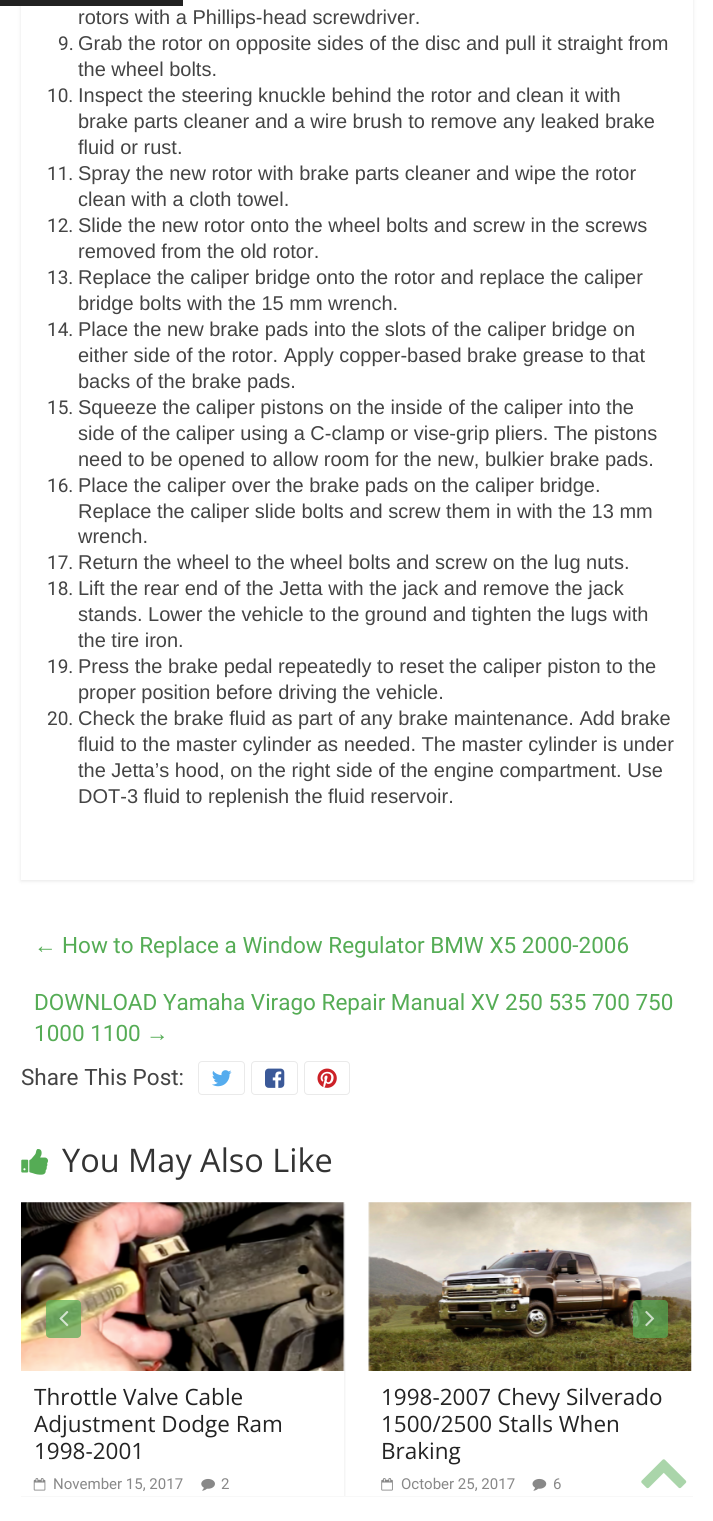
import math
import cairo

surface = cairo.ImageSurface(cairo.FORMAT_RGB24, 713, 1521)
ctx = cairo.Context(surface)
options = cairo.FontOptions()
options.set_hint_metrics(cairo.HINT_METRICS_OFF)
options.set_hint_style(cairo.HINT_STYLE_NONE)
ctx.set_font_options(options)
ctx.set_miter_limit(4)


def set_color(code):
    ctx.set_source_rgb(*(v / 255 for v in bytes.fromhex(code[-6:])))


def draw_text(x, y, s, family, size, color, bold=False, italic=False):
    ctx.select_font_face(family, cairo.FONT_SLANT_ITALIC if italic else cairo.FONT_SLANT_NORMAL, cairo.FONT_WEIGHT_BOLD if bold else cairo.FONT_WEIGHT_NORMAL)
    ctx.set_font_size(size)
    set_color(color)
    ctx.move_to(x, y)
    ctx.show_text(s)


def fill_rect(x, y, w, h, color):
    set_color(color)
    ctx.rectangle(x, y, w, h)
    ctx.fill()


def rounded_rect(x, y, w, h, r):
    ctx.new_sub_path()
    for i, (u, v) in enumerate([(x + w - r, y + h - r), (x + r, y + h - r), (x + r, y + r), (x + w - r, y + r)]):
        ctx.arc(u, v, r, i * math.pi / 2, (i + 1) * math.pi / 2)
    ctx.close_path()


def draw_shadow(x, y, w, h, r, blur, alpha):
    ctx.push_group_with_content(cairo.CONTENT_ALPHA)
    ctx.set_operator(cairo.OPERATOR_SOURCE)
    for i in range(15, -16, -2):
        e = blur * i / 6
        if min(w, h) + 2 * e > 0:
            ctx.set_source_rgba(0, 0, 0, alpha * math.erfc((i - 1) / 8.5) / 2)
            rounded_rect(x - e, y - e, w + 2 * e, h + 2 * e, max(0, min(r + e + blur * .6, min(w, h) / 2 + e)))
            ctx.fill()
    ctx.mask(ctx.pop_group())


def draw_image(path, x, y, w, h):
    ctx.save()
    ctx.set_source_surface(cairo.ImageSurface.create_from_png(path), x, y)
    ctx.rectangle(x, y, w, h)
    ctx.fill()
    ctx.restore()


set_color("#ffffff")
ctx.paint()
ctx.save()
ctx.set_fill_rule(cairo.FILL_RULE_EVEN_ODD)
ctx.new_path()
ctx.move_to(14, 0)
ctx.line_to(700, 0)
ctx.line_to(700, 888)
ctx.line_to(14, 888)
ctx.close_path()
ctx.move_to(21, -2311)
ctx.line_to(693, -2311)
ctx.line_to(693, 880)
ctx.line_to(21, 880)
ctx.close_path()
ctx.clip()
set_color("#000000")
draw_shadow(21, -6, 672, 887, 0, 2, 0.1)
ctx.restore()
fill_rect(0, 0, 183, 6, "#222222")
draw_text(78, 24, "rotors with a Phillips-head screwdriver.", "Liberation Sans", 20, "#444444")
draw_text(58, 50, "9.", "Roboto", 19, "#444444")
draw_text(78, 50, "Grab the rotor on opposite sides of the disc and pull it straight from", "Liberation Sans", 20, "#444444")
draw_text(78, 76, "the wheel bolts.", "Liberation Sans", 20, "#444444")
draw_text(47, 102, "10.", "Roboto", 19, "#444444")
draw_text(78, 102, "Inspect the steering knuckle behind the rotor and clean it with", "Liberation Sans", 20, "#444444")
draw_text(78, 128, "brake parts cleaner and a wire brush to remove any leaked brake", "Liberation Sans", 20, "#444444")
draw_text(78, 154, "fluid or rust.", "Liberation Sans", 20, "#444444")
draw_text(47, 180, "11.", "Roboto", 19, "#444444")
draw_text(78, 180, "Spray the new rotor with brake parts cleaner and wipe the rotor", "Liberation Sans", 20, "#444444")
draw_text(78, 206, "clean with a cloth towel.", "Liberation Sans", 20, "#444444")
draw_text(47, 232, "12.", "Roboto", 19, "#444444")
draw_text(78, 232, "Slide the new rotor onto the wheel bolts and screw in the screws", "Liberation Sans", 20, "#444444")
draw_text(78, 258, "removed from the old rotor.", "Liberation Sans", 20, "#444444")
draw_text(47, 284, "13.", "Roboto", 19, "#444444")
draw_text(78, 284, "Replace the caliper bridge onto the rotor and replace the caliper", "Liberation Sans", 20, "#444444")
draw_text(78, 310, "bridge bolts with the 15 mm wrench.", "Liberation Sans", 20, "#444444")
draw_text(47, 336, "14.", "Roboto", 19, "#444444")
draw_text(78, 336, "Place the new brake pads into the slots of the caliper bridge on", "Liberation Sans", 20, "#444444")
draw_text(78, 362, "either side of the rotor. Apply copper-based brake grease to that", "Liberation Sans", 20, "#444444")
draw_text(78, 388, "backs of the brake pads.", "Liberation Sans", 20, "#444444")
draw_text(47, 414, "15.", "Roboto", 19, "#444444")
draw_text(78, 414, "Squeeze the caliper pistons on the inside of the caliper into the", "Liberation Sans", 20, "#444444")
draw_text(78, 440, "side of the caliper using a C-clamp or vise-grip pliers. The pistons", "Liberation Sans", 20, "#444444")
draw_text(78, 466, "need to be opened to allow room for the new, bulkier brake pads.", "Liberation Sans", 20, "#444444")
draw_text(47, 492, "16.", "Roboto", 19, "#444444")
draw_text(78, 492, "Place the caliper over the brake pads on the caliper bridge.", "Liberation Sans", 20, "#444444")
draw_text(78, 518, "Replace the caliper slide bolts and screw them in with the 13 mm", "Liberation Sans", 20, "#444444")
draw_text(78, 543, "wrench.", "Liberation Sans", 20, "#444444")
draw_text(47, 569, "17.", "Roboto", 19, "#444444")
draw_text(78, 569, "Return the wheel to the wheel bolts and screw on the lug nuts.", "Liberation Sans", 20, "#444444")
draw_text(47, 595, "18.", "Roboto", 19, "#444444")
draw_text(78, 595, "Lift the rear end of the Jetta with the jack and remove the jack", "Liberation Sans", 20, "#444444")
draw_text(78, 621, "stands. Lower the vehicle to the ground and tighten the lugs with", "Liberation Sans", 20, "#444444")
draw_text(78, 647, "the tire iron.", "Liberation Sans", 20, "#444444")
draw_text(47, 673, "19.", "Roboto", 19, "#444444")
draw_text(78, 673, "Press the brake pedal repeatedly to reset the caliper piston to the", "Liberation Sans", 20, "#444444")
draw_text(78, 699, "proper position before driving the vehicle.", "Liberation Sans", 20, "#444444")
draw_text(47, 725, "20.", "Roboto", 19, "#444444")
draw_text(78, 725, "Check the brake fluid as part of any brake maintenance. Add brake", "Liberation Sans", 20, "#444444")
draw_text(78, 751, "fluid to the master cylinder as needed. The master cylinder is under", "Liberation Sans", 20, "#444444")
draw_text(78, 777, "the Jetta’s hood, on the right side of the engine compartment. Use", "Liberation Sans", 20, "#444444")
draw_text(78, 803, "DOT-3 fluid to replenish the fluid reservoir.", "Liberation Sans", 20, "#444444")
draw_text(34, 953, "←", "Liberation Sans", 22.5, "#55ac55")
draw_text(62, 953, "How to Replace a Window Regulator BMW X5 2000-2006", "Roboto", 22.5, "#55ac55")
draw_text(34, 1010, "DOWNLOAD Yamaha Virago Repair Manual XV 250 535 700 750", "Roboto", 22.5, "#55ac55")
draw_text(34, 1041, "1000 1100", "Roboto", 22.5, "#55ac55")
draw_text(146, 1041, "→", "Liberation Sans", 22.5, "#55ac55")
draw_text(21, 1085, "Share This Post:", "Roboto", 22.5, "#444444")
rounded_rect(198.5, 1061.5, 46, 33, 3.5)
set_color("#eaeaea")
ctx.set_line_width(1)
ctx.stroke()
draw_image("assets/img1.png", 212, 1070, 20, 17)
rounded_rect(251.5, 1061.5, 46, 33, 3.5)
ctx.stroke()
draw_image("assets/img2.png", 265, 1068, 20, 20)
rounded_rect(304.5, 1061.5, 45, 33, 3.5)
ctx.stroke()
draw_image("assets/img3.png", 317, 1068, 20, 20)
draw_image("assets/img4.png", 21, 1149, 27, 26)
draw_text(62, 1172, "You May Also Like", "Open Sans", 32.5, "#333333")
fill_rect(21, 1496, 672, 1, "#f8f8f8")
ctx.save()
ctx.rectangle(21, 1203, 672, 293)
ctx.clip()
ctx.rectangle(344, 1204, 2, 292)
ctx.clip()
set_color("#000000")
draw_shadow(21, 1204, 323, 294, 0, 2, 0.1)
ctx.restore()
draw_image("assets/img7.png", 21, 1202, 324, 169)
ctx.set_source_rgba(0.333, 0.675, 0.333, 0.7)
rounded_rect(46, 1300, 35, 38, 4)
ctx.fill()
draw_image("assets/img5.png", 59, 1311, 10, 16)
draw_image("assets/img10.png", 368, 1202, 324, 169)
rounded_rect(633, 1300, 35, 38, 4)
ctx.fill()
draw_image("assets/img6.png", 645, 1311, 10, 16)
draw_text(34, 1405, "Throttle Valve Cable", "Open Sans", 22.5, "#232323")
draw_text(34, 1432, "Adjustment Dodge Ram", "Open Sans", 22.5, "#232323")
draw_text(34, 1459, "1998-2001", "Open Sans", 22.5, "#232323")
draw_image("assets/img8.png", 33, 1478, 13, 13)
draw_text(53, 1489, "November 15, 2017", "Roboto", 15, "#888888")
draw_image("assets/img9.png", 201, 1478, 14, 13)
draw_text(221, 1489, "2", "Roboto", 15, "#888888")
draw_text(381, 1405, "1998-2007 Chevy Silverado", "Open Sans", 22.5, "#232323")
draw_text(381, 1432, "1500/2500 Stalls When", "Open Sans", 22.5, "#232323")
draw_text(381, 1459, "Braking", "Open Sans", 22.5, "#232323")
draw_image("assets/img11.png", 381, 1478, 12, 13)
draw_text(401, 1489, "October 25, 2017", "Roboto", 15, "#888888")
draw_image("assets/img12.png", 532, 1478, 15, 13)
draw_text(553, 1489, "6", "Roboto", 15, "#888888")
draw_image("assets/img13.png", 641, 1459, 46, 30)
surface.write_to_png("output.png")
